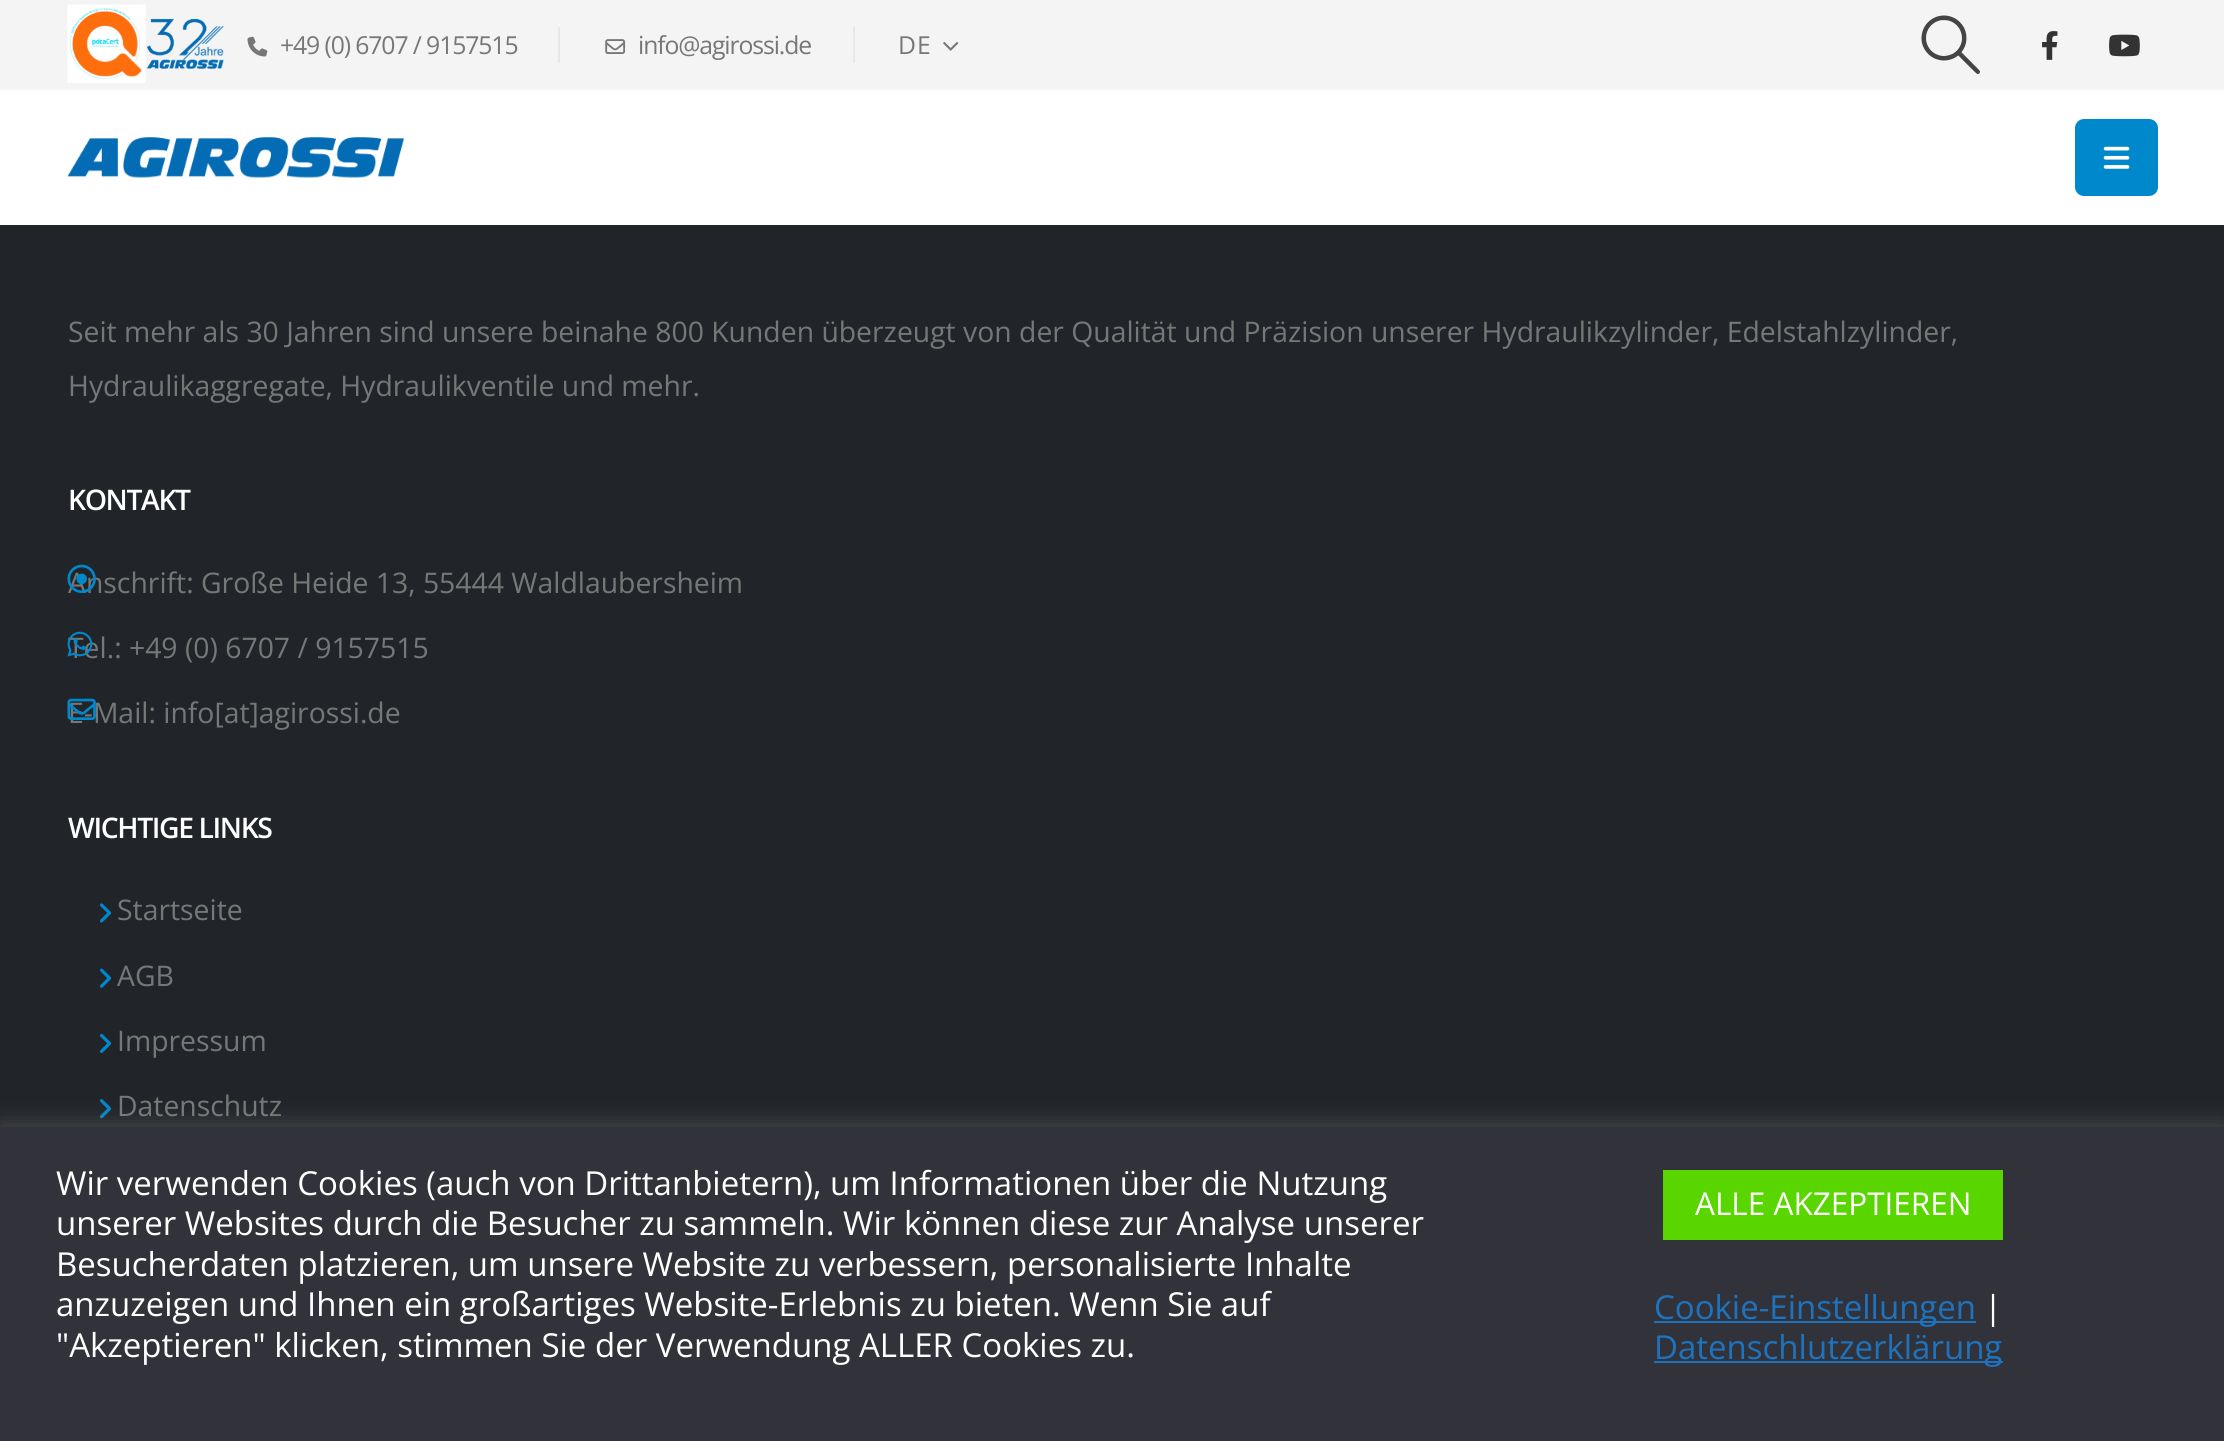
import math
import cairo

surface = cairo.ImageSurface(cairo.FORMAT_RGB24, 2224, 1441)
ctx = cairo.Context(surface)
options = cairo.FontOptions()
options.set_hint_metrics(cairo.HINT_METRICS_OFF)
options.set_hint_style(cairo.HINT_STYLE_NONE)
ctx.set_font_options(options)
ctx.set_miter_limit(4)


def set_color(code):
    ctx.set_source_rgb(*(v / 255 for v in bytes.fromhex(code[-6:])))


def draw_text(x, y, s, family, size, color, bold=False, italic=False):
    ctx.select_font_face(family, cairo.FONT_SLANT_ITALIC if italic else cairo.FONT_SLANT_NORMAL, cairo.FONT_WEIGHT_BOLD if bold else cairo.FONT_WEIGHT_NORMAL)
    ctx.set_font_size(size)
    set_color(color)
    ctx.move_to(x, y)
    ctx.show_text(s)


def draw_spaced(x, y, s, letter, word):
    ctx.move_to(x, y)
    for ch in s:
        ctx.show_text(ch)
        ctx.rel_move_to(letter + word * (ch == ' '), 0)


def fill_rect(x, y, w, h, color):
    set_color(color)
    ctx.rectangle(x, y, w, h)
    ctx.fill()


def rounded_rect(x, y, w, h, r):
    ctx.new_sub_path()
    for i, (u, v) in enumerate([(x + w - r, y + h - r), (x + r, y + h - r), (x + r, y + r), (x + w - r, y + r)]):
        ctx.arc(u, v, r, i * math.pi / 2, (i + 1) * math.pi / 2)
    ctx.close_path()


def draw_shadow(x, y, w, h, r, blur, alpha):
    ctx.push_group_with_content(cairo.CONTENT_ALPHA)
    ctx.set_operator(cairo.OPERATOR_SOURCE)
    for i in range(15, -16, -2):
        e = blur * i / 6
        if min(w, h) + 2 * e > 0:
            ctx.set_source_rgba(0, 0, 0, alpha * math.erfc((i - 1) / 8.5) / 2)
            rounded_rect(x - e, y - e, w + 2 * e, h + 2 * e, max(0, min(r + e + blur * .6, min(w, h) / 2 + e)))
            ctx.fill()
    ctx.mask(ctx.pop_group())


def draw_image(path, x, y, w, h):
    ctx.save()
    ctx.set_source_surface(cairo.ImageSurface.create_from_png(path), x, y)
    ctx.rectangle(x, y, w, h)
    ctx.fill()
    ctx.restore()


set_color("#212529")
ctx.paint()
fill_rect(0, 0, 2224, 90, "#f4f4f4")
draw_image("assets/img1.png", 67, 4, 79, 79)
draw_image("assets/img2.png", 147, 18, 77, 51)
draw_image("assets/img3.png", 247, 36, 21, 21)
ctx.select_font_face("Open Sans")
ctx.set_font_size(24.75)
set_color("#777777")
draw_spaced(280, 54, "+49 (0) 6707 / 9157515", -1.1, 0)
fill_rect(558, 27, 2, 36, "#e8e8e8")
draw_image("assets/img4.png", 605, 39, 21, 15)
set_color("#777777")
draw_spaced(638, 54, "info@agirossi.de", -1.1, 0)
fill_rect(853, 27, 2, 36, "#e8e8e8")
set_color("#777777")
draw_spaced(898, 54, "DE", 1, 0)
draw_image("assets/img5.png", 943, 42, 16, 9)
draw_image("assets/img6.png", 1921, 15, 59, 59)
draw_image("assets/img7.png", 2042, 31, 16, 29)
draw_image("assets/img8.png", 2109, 34, 31, 23)
fill_rect(0, 90, 2224, 135, "#ffffff")
draw_image("assets/img9.png", 67, 137, 338, 41)
set_color("#0088cc")
rounded_rect(2075, 119, 83, 77, 9)
ctx.fill()
draw_image("assets/img10.png", 2103, 146, 27, 23)
draw_text(68, 342, "Seit mehr als 30 Jahren sind unsere beinahe 800 Kunden überzeugt von der Qualität und Präzision unserer Hydraulikzylinder, Edelstahlzylinder,", "Open Sans", 28.35, "#777777")
draw_text(68, 396, "Hydraulikaggregate, Hydraulikventile und mehr.", "Open Sans", 28.35, "#777777")
ctx.select_font_face("Open Sans SemiBold")
set_color("#ffffff")
draw_spaced(68, 510, "KONTAKT", -1.4, 0)
draw_text(68, 593, "Anschrift: Große Heide 13, 55444 Waldlaubersheim", "Open Sans", 28.35, "#777777")
draw_image("assets/img11.png", 67, 564, 29, 29)
draw_text(68, 658, "Tel.: +49 (0) 6707 / 9157515", "Open Sans", 28.35, "#777777")
draw_image("assets/img12.png", 67, 631, 26, 26)
draw_text(68, 723, "E-Mail: info[at]agirossi.de", "Open Sans", 28.35, "#777777")
draw_image("assets/img13.png", 67, 698, 29, 22)
ctx.select_font_face("Open Sans SemiBold")
set_color("#ffffff")
draw_spaced(68, 838, "WICHTIGE LINKS", -1.4, 0)
draw_image("assets/img14.png", 100, 903, 12, 20)
draw_text(117, 920, "Startseite", "Open Sans", 28.35, "#777777")
draw_image("assets/img15.png", 100, 968, 12, 20)
draw_text(117, 986, "AGB", "Open Sans", 28.35, "#777777")
draw_image("assets/img16.png", 100, 1033, 12, 20)
draw_text(117, 1051, "Impressum", "Open Sans", 28.35, "#777777")
draw_image("assets/img17.png", 100, 1099, 12, 20)
draw_text(117, 1116, "Datenschutz", "Open Sans", 28.35, "#777777")
set_color("#acabab")
draw_shadow(0, 1125, 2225, 315, 0, 11, 0.3)
fill_rect(0, 1127, 2224, 314, "#32323a")
draw_text(56, 1195, "Wir verwenden Cookies (auch von Drittanbietern), um Informationen über die Nutzung", "Open Sans", 33, "#ffffff")
draw_text(56, 1235, "unserer Websites durch die Besucher zu sammeln. Wir können diese zur Analyse unserer", "Open Sans", 33, "#ffffff")
draw_text(56, 1276, "Besucherdaten platzieren, um unsere Website zu verbessern, personalisierte Inhalte", "Open Sans", 33, "#ffffff")
draw_text(56, 1316, "anzuzeigen und Ihnen ein großartiges Website-Erlebnis zu bieten. Wenn Sie auf", "Open Sans", 33, "#ffffff")
draw_text(56, 1357, "\"Akzeptieren\" klicken, stimmen Sie der Verwendung ALLER Cookies zu.", "Open Sans", 33, "#ffffff")
fill_rect(1663, 1170, 340, 70, "#59d600")
draw_text(1695, 1215, "ALLE AKZEPTIEREN", "Open Sans", 31.5, "#ffffff")
fill_rect(1654, 1321, 322, 2, "#1e73be")
draw_text(1654, 1319, "Cookie-Einstellungen", "Open Sans", 33, "#1e73be")
draw_text(1984, 1319, "|", "Open Sans", 33, "#ffffff")
fill_rect(1654, 1361, 349, 2, "#1e73be")
draw_text(1654, 1359, "Datenschlutzerklärung", "Open Sans", 33, "#1e73be")
surface.write_to_png("output.png")
